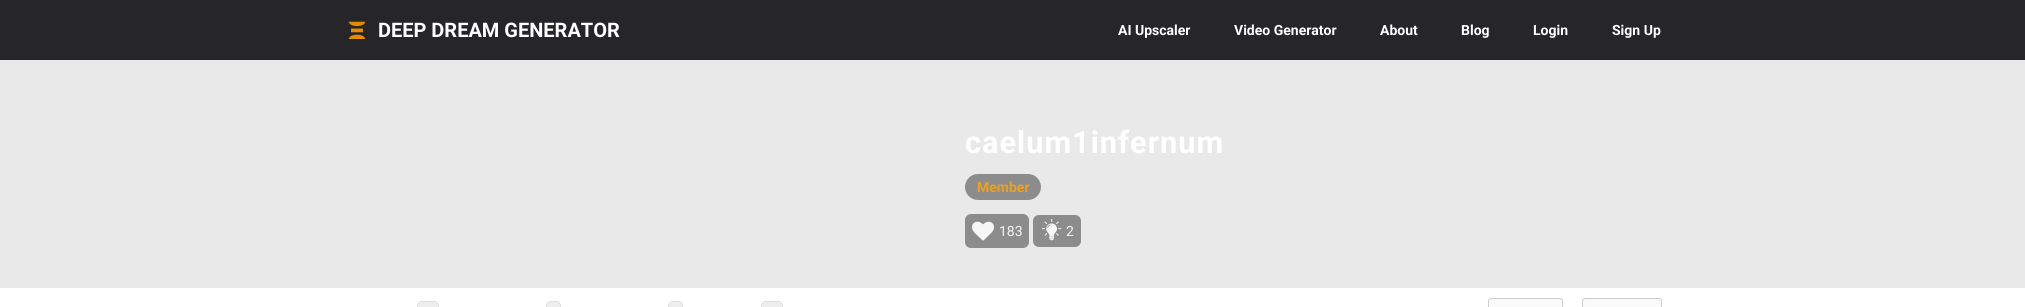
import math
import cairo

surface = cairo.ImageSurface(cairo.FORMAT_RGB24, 2025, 307)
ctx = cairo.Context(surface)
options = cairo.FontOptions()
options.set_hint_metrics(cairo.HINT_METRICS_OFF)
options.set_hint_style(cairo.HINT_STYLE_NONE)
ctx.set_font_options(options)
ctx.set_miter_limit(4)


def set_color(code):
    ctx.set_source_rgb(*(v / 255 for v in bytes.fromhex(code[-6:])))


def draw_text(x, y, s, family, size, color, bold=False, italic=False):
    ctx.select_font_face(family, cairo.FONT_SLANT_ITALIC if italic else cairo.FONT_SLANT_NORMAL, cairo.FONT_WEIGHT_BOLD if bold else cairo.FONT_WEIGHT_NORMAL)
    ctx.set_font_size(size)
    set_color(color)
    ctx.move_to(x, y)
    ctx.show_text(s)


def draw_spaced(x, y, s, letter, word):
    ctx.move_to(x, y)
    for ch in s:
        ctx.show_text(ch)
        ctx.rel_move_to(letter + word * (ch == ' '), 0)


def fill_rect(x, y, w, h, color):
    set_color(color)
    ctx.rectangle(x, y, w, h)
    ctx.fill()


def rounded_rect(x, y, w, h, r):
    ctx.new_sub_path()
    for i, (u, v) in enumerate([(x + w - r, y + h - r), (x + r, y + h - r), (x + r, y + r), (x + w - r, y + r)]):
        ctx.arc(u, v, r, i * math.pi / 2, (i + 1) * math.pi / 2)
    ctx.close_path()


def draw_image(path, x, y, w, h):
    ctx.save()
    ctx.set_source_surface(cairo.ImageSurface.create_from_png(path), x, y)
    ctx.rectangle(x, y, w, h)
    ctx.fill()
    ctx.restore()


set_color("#e9e9e9")
ctx.paint()
fill_rect(0, 0, 2025, 60, "#262628")
draw_image("assets/img1.png", 348, 21, 18, 18)
draw_text(378, 37, "DEEP DREAM GENERATOR", "Roboto", 20, "#ffffff", bold=True)
draw_text(1118, 35, "AI Upscaler", "Roboto", 14, "#ffffff", bold=True)
draw_text(1234, 35, "Video Generator", "Roboto", 14, "#ffffff", bold=True)
draw_text(1380, 35, "About", "Roboto", 14, "#ffffff", bold=True)
draw_text(1461, 35, "Blog", "Roboto", 14, "#ffffff", bold=True)
draw_text(1533, 35, "Login", "Roboto", 14, "#ffffff", bold=True)
draw_text(1612, 35, "Sign Up", "Roboto", 14, "#ffffff", bold=True)
ctx.set_font_size(30.75)
draw_spaced(965, 153, "caelum1infernum", 1, 0)
set_color("#8c8c8c")
rounded_rect(965, 174, 76, 26, 13)
ctx.fill()
draw_text(977, 192, "Member", "Roboto", 14, "#eba123", bold=True)
set_color("#8c8c8c")
rounded_rect(965, 214, 64, 34, 6)
ctx.fill()
draw_image("assets/img2.png", 972, 221, 22, 20)
draw_text(999, 236, "183", "Roboto", 14, "#f6f6f6")
set_color("#8c8c8c")
rounded_rect(1033, 215, 48, 32, 6)
ctx.fill()
draw_image("assets/img3.png", 1042, 219, 20, 22)
draw_text(1066, 236, "2", "Roboto", 14, "#f6f6f6")
fill_rect(0, 288, 2025, 19, "#ffffff")
set_color("#eeeeee")
rounded_rect(417.5, 301.5, 21, 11, 4.5)
ctx.fill_preserve()
set_color("#dddddd")
ctx.set_line_width(1)
ctx.stroke()
set_color("#eeeeee")
rounded_rect(546.5, 301.5, 14, 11, 4.5)
ctx.fill_preserve()
set_color("#dddddd")
ctx.stroke()
set_color("#eeeeee")
rounded_rect(668.5, 301.5, 14, 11, 4.5)
ctx.fill_preserve()
set_color("#dddddd")
ctx.stroke()
set_color("#eeeeee")
rounded_rect(761.5, 301.5, 21, 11, 4.5)
ctx.fill_preserve()
set_color("#dddddd")
ctx.stroke()
set_color("#fafafa")
rounded_rect(1488.5, 298.5, 74, 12, 2.5)
ctx.fill_preserve()
set_color("#cccccc")
ctx.stroke()
set_color("#fafafa")
rounded_rect(1582.5, 298.5, 79, 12, 2.5)
ctx.fill_preserve()
set_color("#cccccc")
ctx.stroke()
surface.write_to_png("output.png")
